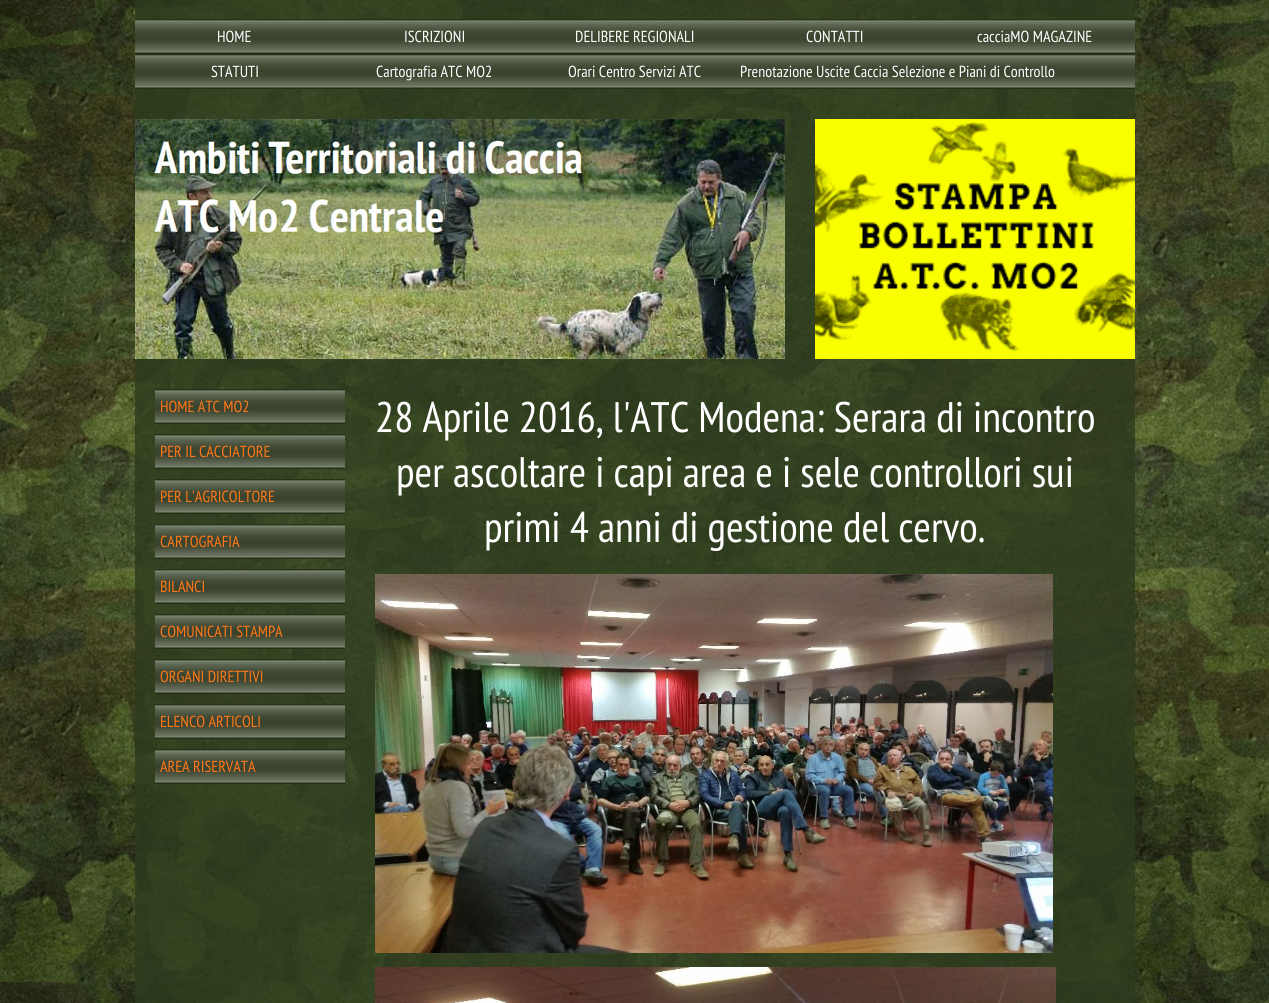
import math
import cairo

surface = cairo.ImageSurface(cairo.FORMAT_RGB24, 1269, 1003)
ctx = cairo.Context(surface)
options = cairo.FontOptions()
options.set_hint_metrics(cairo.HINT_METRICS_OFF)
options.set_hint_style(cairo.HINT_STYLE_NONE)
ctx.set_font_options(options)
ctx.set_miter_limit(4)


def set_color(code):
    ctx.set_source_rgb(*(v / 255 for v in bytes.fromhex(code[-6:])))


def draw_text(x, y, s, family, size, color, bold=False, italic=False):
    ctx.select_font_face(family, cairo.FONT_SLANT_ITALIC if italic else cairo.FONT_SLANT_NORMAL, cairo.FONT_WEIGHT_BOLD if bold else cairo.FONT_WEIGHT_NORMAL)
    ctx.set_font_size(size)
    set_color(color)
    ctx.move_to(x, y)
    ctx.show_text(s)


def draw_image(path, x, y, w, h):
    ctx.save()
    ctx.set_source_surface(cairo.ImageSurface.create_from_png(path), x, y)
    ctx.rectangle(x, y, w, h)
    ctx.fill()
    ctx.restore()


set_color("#ffffff")
ctx.paint()
draw_image("assets/img1.png", 0, 0, 1269, 1003)
ctx.set_source_rgba(0.173, 0.231, 0.114, 0.8)
ctx.rectangle(135, 0, 1000, 1003)
ctx.fill()
draw_image("assets/img2.png", 135, 19, 1000, 70)
draw_text(217, 42, "HOME", "PT Sans Narrow", 16, "#ffffff")
draw_text(404, 42, "ISCRIZIONI", "PT Sans Narrow", 16, "#ffffff")
draw_text(575, 42, "DELIBERE REGIONALI", "PT Sans Narrow", 16, "#ffffff")
draw_text(806, 42, "CONTATTI", "PT Sans Narrow", 16, "#ffffff")
draw_text(977, 42, "cacciaMO MAGAZINE", "PT Sans Narrow", 16, "#ffffff")
draw_text(211, 77, "STATUTI", "PT Sans Narrow", 16, "#ffffff")
draw_text(376, 77, "Cartografia ATC MO2", "PT Sans Narrow", 16, "#ffffff")
draw_text(568, 77, "Orari Centro Servizi ATC", "PT Sans Narrow", 16, "#ffffff")
draw_text(740, 77, "Prenotazione Uscite Caccia Selezione e Piani di Controllo", "PT Sans Narrow", 16, "#ffffff")
draw_image("assets/img3.png", 135, 119, 650, 240)
draw_image("assets/img4.png", 815, 119, 320, 240)
draw_image("assets/img5.png", 155, 389, 190, 35)
draw_text(160, 412, "HOME ATC MO2", "PT Sans Narrow", 16, "#ff7717")
draw_image("assets/img5.png", 155, 434, 190, 35)
draw_text(160, 457, "PER IL CACCIATORE", "PT Sans Narrow", 16, "#ff7717")
draw_image("assets/img5.png", 155, 479, 190, 35)
draw_text(160, 502, "PER L'AGRICOLTORE", "PT Sans Narrow", 16, "#ff7717")
draw_image("assets/img5.png", 155, 524, 190, 35)
draw_text(160, 547, "CARTOGRAFIA", "PT Sans Narrow", 16, "#ff7717")
draw_image("assets/img5.png", 155, 569, 190, 35)
draw_text(160, 592, "BILANCI", "PT Sans Narrow", 16, "#ff7717")
draw_image("assets/img5.png", 155, 614, 190, 35)
draw_text(160, 637, "COMUNICATI STAMPA", "PT Sans Narrow", 16, "#ff7717")
draw_image("assets/img5.png", 155, 659, 190, 35)
draw_text(160, 682, "ORGANI DIRETTIVI", "PT Sans Narrow", 16, "#ff7717")
draw_image("assets/img5.png", 155, 704, 190, 35)
draw_text(160, 727, "ELENCO ARTICOLI", "PT Sans Narrow", 16, "#ff7717")
draw_image("assets/img5.png", 155, 749, 190, 35)
draw_text(160, 772, "AREA RISERVATA", "PT Sans Narrow", 16, "#ff7717")
draw_text(375, 432, "28 Aprile 2016, l'ATC Modena: Serara di incontro", "PT Sans Narrow", 42.7, "#ffffff")
draw_text(396, 487, "per ascoltare i capi area e i sele controllori sui", "PT Sans Narrow", 42.7, "#ffffff")
draw_text(484, 542, "primi 4 anni di gestione del cervo.", "PT Sans Narrow", 42.7, "#ffffff")
draw_image("assets/img6.png", 375, 574, 678, 379)
draw_image("assets/img7.png", 375, 967, 681, 36)
surface.write_to_png("output.png")
